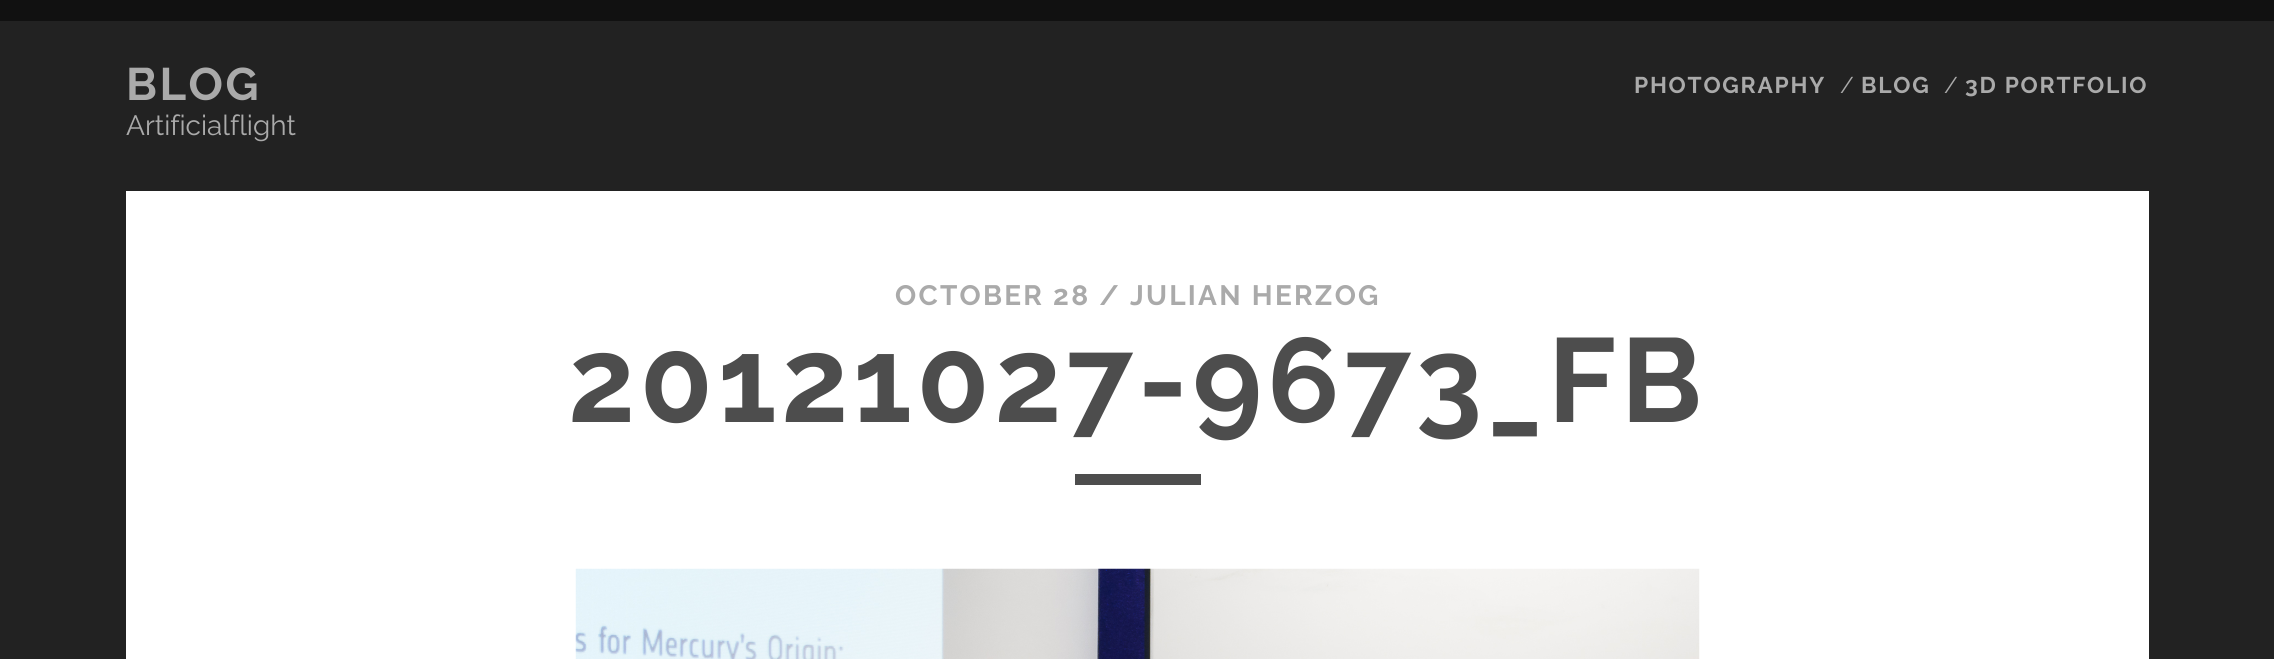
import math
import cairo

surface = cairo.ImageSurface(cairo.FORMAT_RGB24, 2274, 659)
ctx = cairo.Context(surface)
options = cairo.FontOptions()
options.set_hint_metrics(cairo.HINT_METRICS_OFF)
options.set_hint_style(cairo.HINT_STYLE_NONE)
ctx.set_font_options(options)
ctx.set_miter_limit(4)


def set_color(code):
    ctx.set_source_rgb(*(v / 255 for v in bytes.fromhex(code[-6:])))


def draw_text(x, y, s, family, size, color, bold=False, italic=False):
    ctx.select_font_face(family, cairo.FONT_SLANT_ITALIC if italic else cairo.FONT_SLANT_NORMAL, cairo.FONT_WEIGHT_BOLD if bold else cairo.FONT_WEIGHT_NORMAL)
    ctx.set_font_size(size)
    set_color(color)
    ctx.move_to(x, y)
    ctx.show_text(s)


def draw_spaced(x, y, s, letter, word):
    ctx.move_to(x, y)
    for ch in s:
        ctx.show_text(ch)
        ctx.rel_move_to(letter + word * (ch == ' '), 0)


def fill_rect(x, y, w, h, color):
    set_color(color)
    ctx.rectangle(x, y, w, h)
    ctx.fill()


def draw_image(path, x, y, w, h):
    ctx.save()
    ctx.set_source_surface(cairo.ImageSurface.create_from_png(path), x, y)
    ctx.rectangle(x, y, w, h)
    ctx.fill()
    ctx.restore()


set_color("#222222")
ctx.paint()
fill_rect(0, 0, 2274, 21, "#111111")
ctx.select_font_face("Raleway", cairo.FONT_SLANT_NORMAL, cairo.FONT_WEIGHT_BOLD)
ctx.set_font_size(45.5)
set_color("#aaaaaa")
draw_spaced(126, 100, "BLOG", 2.5, 0)
ctx.set_font_size(22.75)
draw_spaced(1634, 93, "PHOTOGRAPHY", 1.75, 0)
draw_text(1840, 93, "/", "Raleway", 22.75, "#aaaaaa")
ctx.select_font_face("Raleway", cairo.FONT_SLANT_NORMAL, cairo.FONT_WEIGHT_BOLD)
draw_spaced(1861, 93, "BLOG", 1.75, 0)
draw_text(1944, 93, "/", "Raleway", 22.75, "#aaaaaa")
ctx.select_font_face("Raleway", cairo.FONT_SLANT_NORMAL, cairo.FONT_WEIGHT_BOLD)
draw_spaced(1965, 93, "3D PORTFOLIO", 1.75, 0)
draw_text(126, 135, "Artificialflight", "Raleway", 28, "#aaaaaa")
fill_rect(126, 191, 2023, 468, "#ffffff")
ctx.select_font_face("Raleway", cairo.FONT_SLANT_NORMAL, cairo.FONT_WEIGHT_BOLD)
set_color("#aaaaaa")
draw_spaced(895, 305, "OCTOBER 28 / JULIAN HERZOG", 2.25, 0)
ctx.set_font_size(119)
set_color("#4d4d4d")
draw_spaced(568, 422, "20121027-9673_FB", 4.75, 0)
fill_rect(1075, 474, 126, 11, "#4d4d4d")
draw_image("assets/img1.png", 575, 568, 1125, 91)
surface.write_to_png("output.png")
